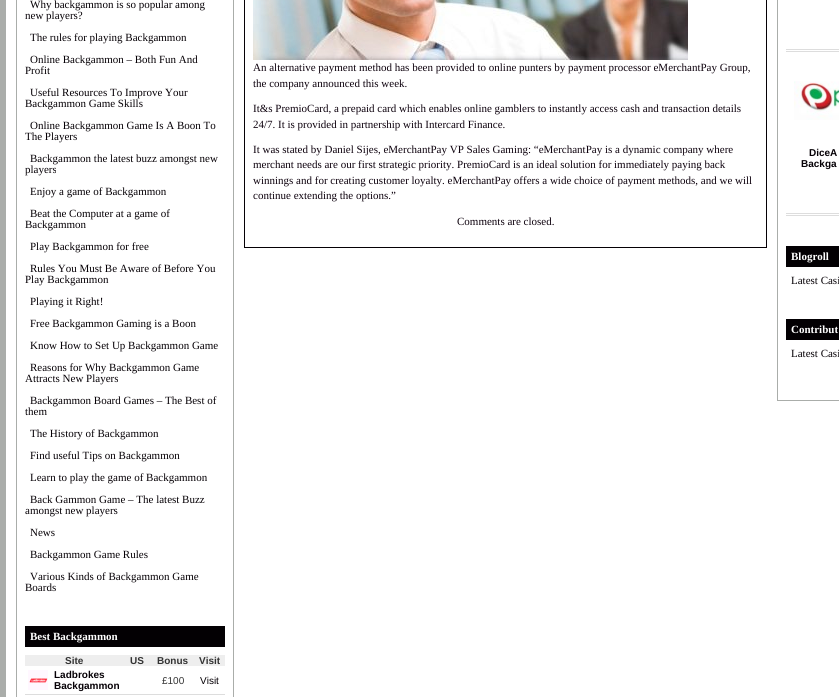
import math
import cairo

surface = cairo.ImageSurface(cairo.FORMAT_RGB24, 839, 697)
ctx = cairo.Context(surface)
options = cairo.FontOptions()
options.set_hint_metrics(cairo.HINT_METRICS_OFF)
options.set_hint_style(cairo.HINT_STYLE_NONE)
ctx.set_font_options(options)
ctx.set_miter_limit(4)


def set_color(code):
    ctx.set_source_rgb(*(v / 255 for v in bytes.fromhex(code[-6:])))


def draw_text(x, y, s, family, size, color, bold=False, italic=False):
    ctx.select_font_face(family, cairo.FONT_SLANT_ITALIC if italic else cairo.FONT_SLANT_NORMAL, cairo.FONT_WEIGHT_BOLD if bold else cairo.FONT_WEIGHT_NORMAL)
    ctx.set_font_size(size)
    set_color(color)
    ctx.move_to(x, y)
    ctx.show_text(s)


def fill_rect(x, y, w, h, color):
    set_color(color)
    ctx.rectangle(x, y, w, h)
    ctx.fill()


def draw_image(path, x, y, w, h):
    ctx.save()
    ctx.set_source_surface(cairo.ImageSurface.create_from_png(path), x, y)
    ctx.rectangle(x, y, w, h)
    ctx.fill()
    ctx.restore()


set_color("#ffffff")
ctx.paint()
ctx.rectangle(3, -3, 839, 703)
set_color("#aaadaa")
ctx.set_line_width(6)
ctx.stroke()
ctx.rectangle(16.5, -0.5, 217, 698)
ctx.set_line_width(1)
ctx.stroke()
draw_text(30, 8, "Why backgammon is so popular among", "Liberation Serif", 11, "#050005")
draw_text(25, 19, "new players?", "Liberation Serif", 11, "#050005")
draw_text(30, 41, "The rules for playing Backgammon", "Liberation Serif", 11, "#050005")
draw_text(30, 63, "Online Backgammon – Both Fun And", "Liberation Serif", 11, "#050005")
draw_text(25, 74, "Profit", "Liberation Serif", 11, "#050005")
draw_text(30, 96, "Useful Resources To Improve Your", "Liberation Serif", 11, "#050005")
draw_text(25, 107, "Backgammon Game Skills", "Liberation Serif", 11, "#050005")
draw_text(30, 129, "Online Backgammon Game Is A Boon To", "Liberation Serif", 11, "#050005")
draw_text(25, 140, "The Players", "Liberation Serif", 11, "#050005")
draw_text(30, 162, "Backgammon the latest buzz amongst new", "Liberation Serif", 11, "#050005")
draw_text(25, 173, "players", "Liberation Serif", 11, "#050005")
draw_text(30, 195, "Enjoy a game of Backgammon", "Liberation Serif", 11, "#050005")
draw_text(30, 217, "Beat the Computer at a game of", "Liberation Serif", 11, "#050005")
draw_text(25, 228, "Backgammon", "Liberation Serif", 11, "#050005")
draw_text(30, 250, "Play Backgammon for free", "Liberation Serif", 11, "#050005")
draw_text(30, 272, "Rules You Must Be Aware of Before You", "Liberation Serif", 11, "#050005")
draw_text(25, 283, "Play Backgammon", "Liberation Serif", 11, "#050005")
draw_text(30, 305, "Playing it Right!", "Liberation Serif", 11, "#050005")
draw_text(30, 327, "Free Backgammon Gaming is a Boon", "Liberation Serif", 11, "#050005")
draw_text(30, 349, "Know How to Set Up Backgammon Game", "Liberation Serif", 11, "#050005")
draw_text(30, 371, "Reasons for Why Backgammon Game", "Liberation Serif", 11, "#050005")
draw_text(25, 382, "Attracts New Players", "Liberation Serif", 11, "#050005")
draw_text(30, 404, "Backgammon Board Games – The Best of", "Liberation Serif", 11, "#050005")
draw_text(25, 415, "them", "Liberation Serif", 11, "#050005")
draw_text(30, 437, "The History of Backgammon", "Liberation Serif", 11, "#050005")
draw_text(30, 459, "Find useful Tips on Backgammon", "Liberation Serif", 11, "#050005")
draw_text(30, 481, "Learn to play the game of Backgammon", "Liberation Serif", 11, "#050005")
draw_text(30, 503, "Back Gammon Game – The latest Buzz", "Liberation Serif", 11, "#050005")
draw_text(25, 514, "amongst new players", "Liberation Serif", 11, "#050005")
draw_text(30, 536, "News", "Liberation Serif", 11, "#050005")
draw_text(30, 558, "Backgammon Game Rules", "Liberation Serif", 11, "#050005")
draw_text(30, 580, "Various Kinds of Backgammon Game", "Liberation Serif", 11, "#050005")
draw_text(25, 591, "Boards", "Liberation Serif", 11, "#050005")
fill_rect(25, 626, 200, 21, "#030003")
draw_text(30, 640, "Best Backgammon", "Liberation Serif", 11, "#ffffff", bold=True)
fill_rect(25, 655, 200, 11, "#eeeeee")
draw_text(65, 664, "Site", "Liberation Sans", 10, "#333333", bold=True)
draw_text(130, 664, "US", "Liberation Sans", 10, "#333333", bold=True)
draw_text(157, 664, "Bonus", "Liberation Sans", 10, "#333333", bold=True)
draw_text(199, 664, "Visit", "Liberation Sans", 10, "#333333", bold=True)
fill_rect(25, 694, 200, 1, "#dddddd")
draw_image("assets/img1.png", 28, 670, 20, 20)
draw_text(54, 678, "Ladbrokes", "Liberation Sans", 10, "#050005", bold=True)
draw_text(54, 689, "Backgammon", "Liberation Sans", 10, "#050005", bold=True)
draw_text(162, 684, "£100", "Liberation Sans", 10, "#333333")
draw_text(200, 684, "Visit", "Liberation Sans", 10, "#050005")
ctx.rectangle(244.5, -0.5, 522, 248)
ctx.stroke()
draw_image("assets/img2.png", 253, 0, 435, 60)
draw_text(253, 71, "An alternative payment method has been provided to online punters by payment processor eMerchantPay Group,", "Liberation Serif", 11, "#0d010d")
draw_text(253, 87, "the company announced this week.", "Liberation Serif", 11, "#0d010d")
draw_text(253, 112, "It&s PremioCard, a prepaid card which enables online gamblers to instantly access cash and transaction details", "Liberation Serif", 11, "#0d010d")
draw_text(253, 128, "24/7. It is provided in partnership with Intercard Finance.", "Liberation Serif", 11, "#0d010d")
draw_text(253, 153, "It was stated by Daniel Sijes, eMerchantPay VP Sales Gaming: “eMerchantPay is a dynamic company where", "Liberation Serif", 11, "#0d010d")
draw_text(253, 168, "merchant needs are our first strategic priority. PremioCard is an ideal solution for immediately paying back", "Liberation Serif", 11, "#0d010d")
draw_text(253, 184, "winnings and for creating customer loyalty. eMerchantPay offers a wide choice of payment methods, and we will", "Liberation Serif", 11, "#0d010d")
draw_text(253, 199, "continue extending the options.”", "Liberation Serif", 11, "#0d010d")
draw_text(457, 225, "Comments are closed.", "Liberation Serif", 11, "#0d010d")
ctx.rectangle(777.5, -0.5, 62, 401)
set_color("#aaadaa")
ctx.stroke()
fill_rect(786, 49, 53, 1, "#dddddd")
fill_rect(786, 51, 53, 1, "#dddddd")
fill_rect(786, 213, 53, 1, "#dddddd")
fill_rect(786, 215, 53, 1, "#dddddd")
draw_image("assets/img3.png", 794, 81, 45, 39)
draw_text(809, 156, "DiceA", "Liberation Sans", 10, "#050005", bold=True)
draw_text(801, 167, "Backga", "Liberation Sans", 10, "#050005", bold=True)
fill_rect(786, 246, 53, 21, "#030003")
draw_text(791, 260, "Blogroll", "Liberation Serif", 11, "#ffffff", bold=True)
draw_text(791, 284, "Latest Casi", "Liberation Serif", 11, "#050005")
fill_rect(786, 319, 53, 21, "#030003")
draw_text(791, 333, "Contribut", "Liberation Serif", 11, "#ffffff", bold=True)
draw_text(791, 357, "Latest Casi", "Liberation Serif", 11, "#050005")
surface.write_to_png("output.png")
